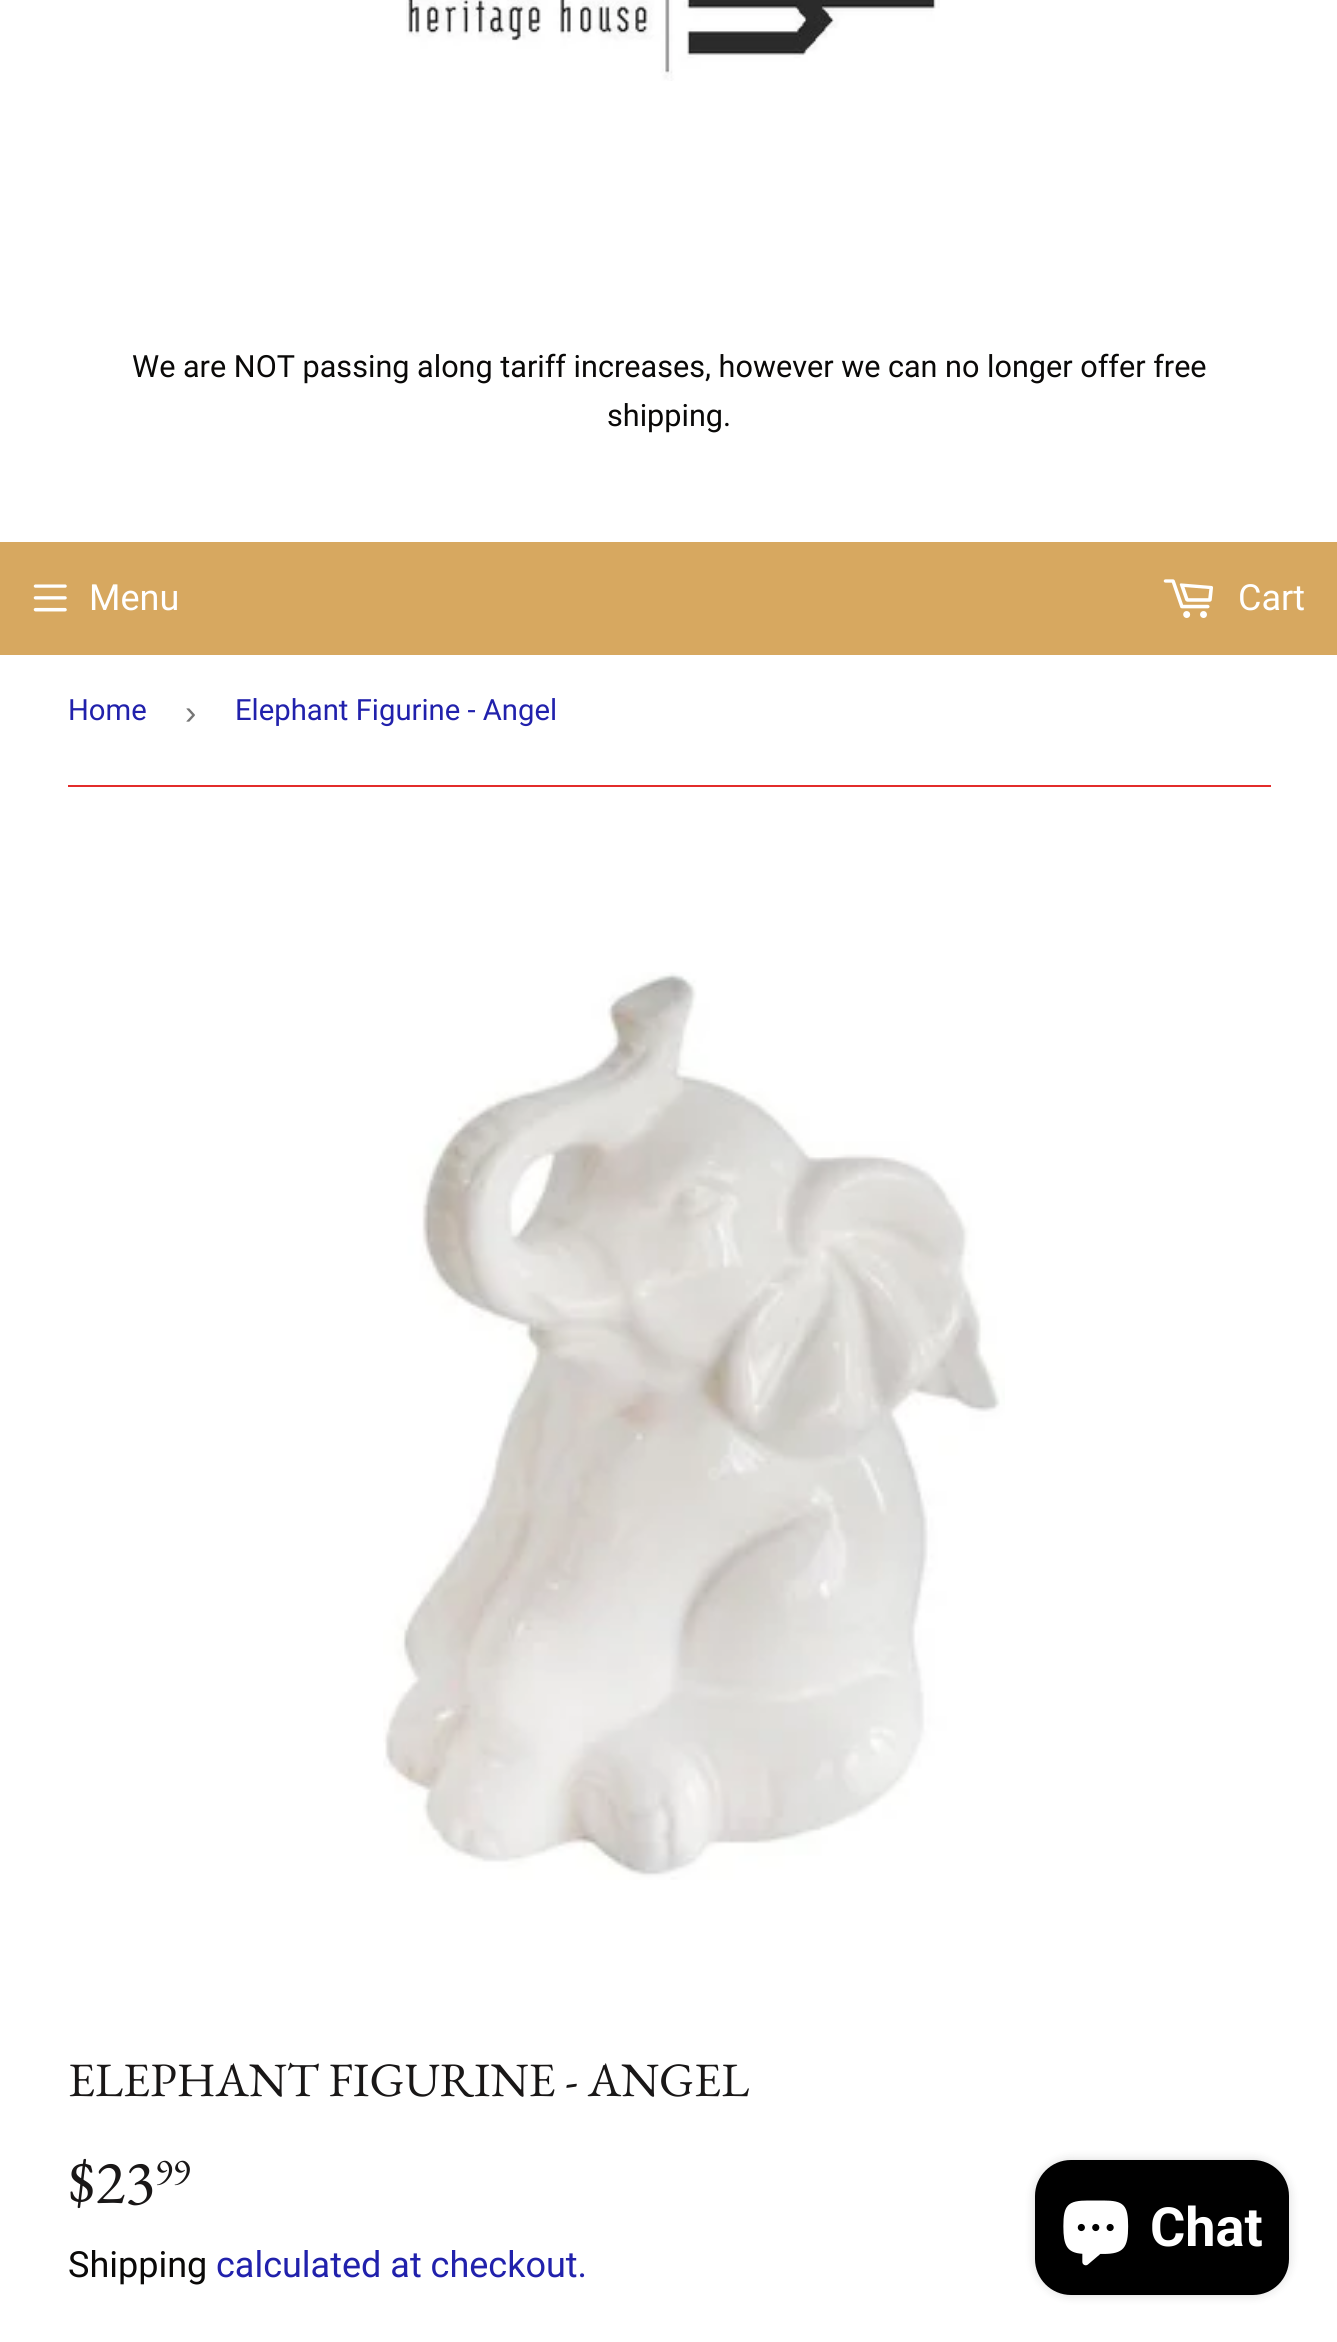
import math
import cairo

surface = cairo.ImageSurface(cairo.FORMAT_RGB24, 1337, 2342)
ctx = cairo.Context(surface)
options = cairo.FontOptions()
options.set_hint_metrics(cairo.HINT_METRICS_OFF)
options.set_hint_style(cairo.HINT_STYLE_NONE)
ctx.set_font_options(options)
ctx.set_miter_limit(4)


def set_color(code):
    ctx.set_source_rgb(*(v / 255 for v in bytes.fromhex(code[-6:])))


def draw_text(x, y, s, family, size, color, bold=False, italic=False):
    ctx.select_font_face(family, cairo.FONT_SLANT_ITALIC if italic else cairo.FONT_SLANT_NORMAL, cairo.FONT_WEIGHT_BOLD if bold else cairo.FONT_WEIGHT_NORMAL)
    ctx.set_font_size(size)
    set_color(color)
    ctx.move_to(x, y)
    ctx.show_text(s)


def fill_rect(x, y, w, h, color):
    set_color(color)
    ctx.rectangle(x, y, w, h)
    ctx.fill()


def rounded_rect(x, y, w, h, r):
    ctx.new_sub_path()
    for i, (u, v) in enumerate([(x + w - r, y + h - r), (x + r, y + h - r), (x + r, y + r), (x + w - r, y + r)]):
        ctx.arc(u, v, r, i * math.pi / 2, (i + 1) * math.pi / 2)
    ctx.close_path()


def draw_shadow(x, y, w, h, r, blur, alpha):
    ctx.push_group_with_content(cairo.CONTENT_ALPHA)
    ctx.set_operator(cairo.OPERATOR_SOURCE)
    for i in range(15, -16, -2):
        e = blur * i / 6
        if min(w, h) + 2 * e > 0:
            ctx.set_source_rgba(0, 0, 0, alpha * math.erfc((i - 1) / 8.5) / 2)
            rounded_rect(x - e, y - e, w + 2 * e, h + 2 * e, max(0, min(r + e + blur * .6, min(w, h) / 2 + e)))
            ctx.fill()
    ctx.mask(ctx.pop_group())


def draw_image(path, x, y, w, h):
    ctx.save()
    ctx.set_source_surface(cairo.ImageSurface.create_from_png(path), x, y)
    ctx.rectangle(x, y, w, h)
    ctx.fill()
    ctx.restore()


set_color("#ffffff")
ctx.paint()
draw_image("assets/img1.png", 406, 0, 534, 81)
draw_text(132, 377, "We are NOT passing along tariff increases, however we can no longer offer free", "Roboto", 30.6, "#0a0908")
draw_text(607, 426, "shipping.", "Roboto", 30.6, "#0a0908")
fill_rect(0, 542, 1337, 113, "#d7a860")
draw_image("assets/img2.png", 33, 584, 34, 28)
draw_text(89, 610, "Menu", "Roboto", 36, "#ffffff")
draw_image("assets/img3.png", 1163, 579, 50, 39)
draw_text(1238, 610, "Cart", "Roboto", 36, "#ffffff")
fill_rect(68, 785, 1203, 2, "#e32c2b")
draw_text(68, 720, "Home", "Roboto", 29.25, "#2121ac")
draw_text(185, 724, "›", "Liberation Sans", 34, "#767676")
draw_text(235, 720, "Elephant Figurine - Angel", "Roboto", 29.25, "#2121ac")
draw_image("assets/img4.png", 383, 972, 622, 908)
draw_text(68, 2096, "ELEPHANT FIGURINE - ANGEL", "EB Garamond", 48, "#191717")
draw_text(68, 2203, "$23", "EB Garamond", 62, "#191717")
draw_text(155, 2184, "99", "EB Garamond", 37, "#191717")
draw_text(68, 2277, "Shipping", "Roboto", 36, "#0a0908")
draw_text(216, 2277, "calculated at checkout.", "Roboto", 36, "#2121ac")
set_color("#000000")
draw_shadow(1035, 2160, 254, 135, 36, 5.5, 0.15)
set_color("#000000")
rounded_rect(1035, 2160, 254, 135, 36)
ctx.fill()
draw_image("assets/img5.png", 1063, 2200, 66, 66)
draw_text(1150, 2246, "Chat", "Roboto", 54, "#ffffff", bold=True)
surface.write_to_png("output.png")
